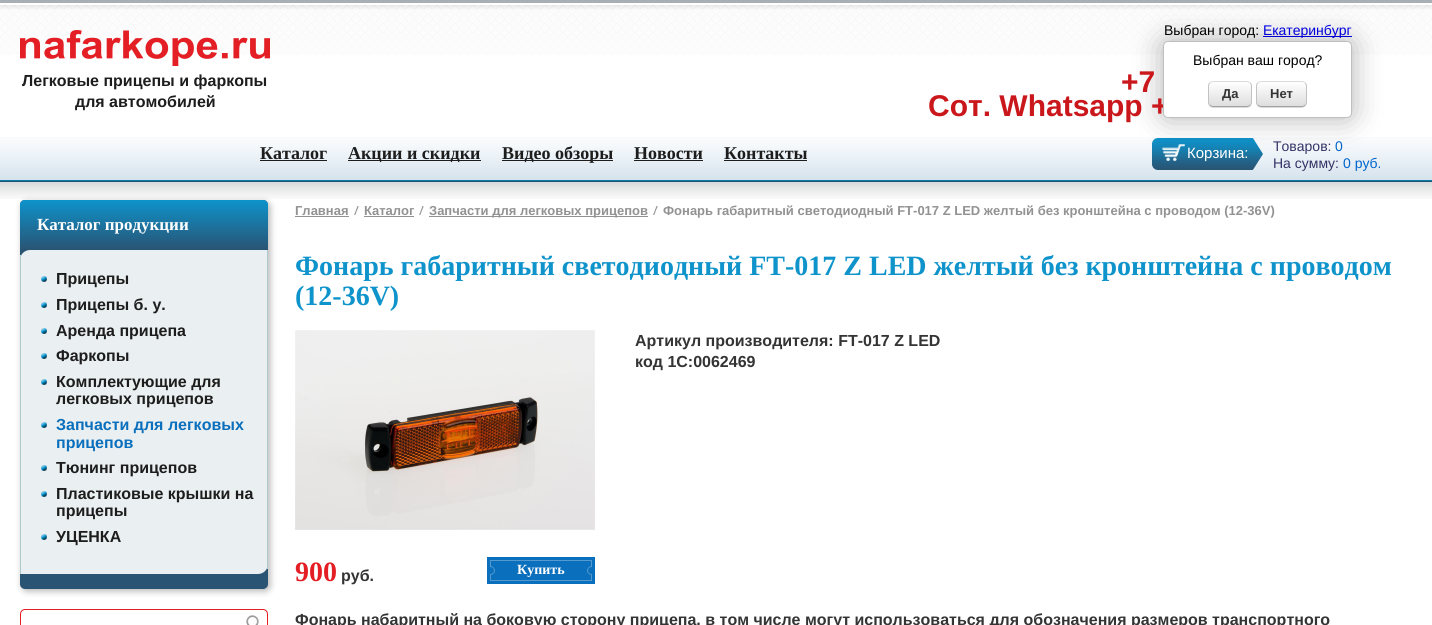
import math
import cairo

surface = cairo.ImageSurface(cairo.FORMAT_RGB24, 1432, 625)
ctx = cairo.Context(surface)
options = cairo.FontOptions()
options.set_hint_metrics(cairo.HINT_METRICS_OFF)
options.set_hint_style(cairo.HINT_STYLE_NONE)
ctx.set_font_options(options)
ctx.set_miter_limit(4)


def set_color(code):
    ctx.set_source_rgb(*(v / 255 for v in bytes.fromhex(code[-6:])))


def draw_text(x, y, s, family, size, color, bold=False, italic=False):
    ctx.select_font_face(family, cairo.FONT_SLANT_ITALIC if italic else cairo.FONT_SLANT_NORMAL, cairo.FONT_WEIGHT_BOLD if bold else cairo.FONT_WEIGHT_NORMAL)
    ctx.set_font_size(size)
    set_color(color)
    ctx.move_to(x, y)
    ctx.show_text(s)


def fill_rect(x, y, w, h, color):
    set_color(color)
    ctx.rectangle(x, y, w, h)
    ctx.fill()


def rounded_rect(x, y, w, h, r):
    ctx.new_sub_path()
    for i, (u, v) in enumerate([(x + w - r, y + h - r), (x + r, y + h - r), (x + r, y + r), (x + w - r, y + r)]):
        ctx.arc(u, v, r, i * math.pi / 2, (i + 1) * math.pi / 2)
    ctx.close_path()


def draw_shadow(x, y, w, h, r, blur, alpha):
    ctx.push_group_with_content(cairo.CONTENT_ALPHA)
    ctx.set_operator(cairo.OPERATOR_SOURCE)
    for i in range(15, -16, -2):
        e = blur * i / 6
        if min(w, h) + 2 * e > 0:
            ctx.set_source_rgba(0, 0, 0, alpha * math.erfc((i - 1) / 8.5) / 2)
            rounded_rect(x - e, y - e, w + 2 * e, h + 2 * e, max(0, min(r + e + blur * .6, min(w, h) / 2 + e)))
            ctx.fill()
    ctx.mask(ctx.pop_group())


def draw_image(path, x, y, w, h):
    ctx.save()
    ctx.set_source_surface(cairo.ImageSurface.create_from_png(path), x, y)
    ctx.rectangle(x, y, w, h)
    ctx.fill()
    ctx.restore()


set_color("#ffffff")
ctx.paint()
draw_image("assets/img1.png", 0, 0, 1432, 55)
draw_image("assets/img2.png", 0, 137, 1432, 62)
draw_image("assets/img3.png", 20, 30, 250, 36)
draw_text(1164, 35, "Выбран город:", "Liberation Sans", 14, "#000000")
fill_rect(1263, 36, 89, 1, "#0000ee")
draw_text(1263, 35, "Екатеринбург", "Liberation Sans", 14, "#0000ee")
draw_image("assets/img4.png", 1152, 138, 111, 32)
set_color("#000000")
draw_shadow(1163, 41, 189, 77, 5, 15, 0.3)
draw_text(928, 116, "Сот. Whatsapp +", "Liberation Sans", 30, "#ca171c", bold=True)
set_color("#ffffff")
rounded_rect(1163.5, 41.5, 188, 76, 4.5)
ctx.fill_preserve()
set_color("#bfbfbf")
ctx.set_line_width(1)
ctx.stroke()
draw_text(1193, 65, "Выбран ваш город?", "Liberation Sans", 14, "#000000")
set_color("#dbdbdb")
ctx.new_path()
ctx.move_to(1208, 102)
ctx.curve_to(1208, 109, 1213, 108, 1219, 108)
ctx.line_to(1241, 108)
ctx.curve_to(1247, 108, 1252, 109, 1252, 102)
ctx.curve_to(1252, 105, 1250, 107, 1247, 107)
ctx.line_to(1213, 107)
ctx.curve_to(1210, 107, 1208, 105, 1208, 102)
ctx.close_path()
ctx.fill()
ctx.save()
rounded_rect(1208, 81, 44, 26, 5)
ctx.clip()
gradient = cairo.LinearGradient(1230, 82, 1230, 106)
gradient.add_color_stop_rgba(0, 1, 1, 1, 1)
gradient.add_color_stop_rgba(1, 0.871, 0.871, 0.871, 1)
ctx.set_source(gradient)
ctx.rectangle(1208, 82, 44, 24)
ctx.fill()
ctx.restore()
ctx.new_path()
ctx.move_to(1210, 83)
ctx.curve_to(1210.5, 82, 1212, 81.5, 1213, 81.5)
ctx.line_to(1247, 81.5)
ctx.curve_to(1248, 81.5, 1249.5, 82, 1250, 83)
set_color("#dddddd")
ctx.stroke()
ctx.new_path()
ctx.move_to(1250, 83)
ctx.curve_to(1251, 83.5, 1251.5, 85, 1251.5, 86)
ctx.line_to(1251.5, 102)
ctx.curve_to(1251.5, 103, 1251, 104.5, 1250, 105)
set_color("#c2c2c2")
ctx.stroke()
ctx.new_path()
ctx.move_to(1250, 105)
ctx.curve_to(1249.5, 106, 1248, 106.5, 1247, 106.5)
ctx.line_to(1213, 106.5)
ctx.curve_to(1212, 106.5, 1210.5, 106, 1210, 105)
set_color("#a3a3a3")
ctx.stroke()
ctx.new_path()
ctx.move_to(1210, 105)
ctx.curve_to(1209, 104.5, 1208.5, 103, 1208.5, 102)
ctx.line_to(1208.5, 86)
ctx.curve_to(1208.5, 85, 1209, 83.5, 1210, 83)
set_color("#c2c2c2")
ctx.stroke()
draw_text(1222, 98, "Да", "Liberation Sans", 13, "#343434", bold=True)
set_color("#dbdbdb")
ctx.new_path()
ctx.move_to(1256, 102)
ctx.curve_to(1256, 109, 1262, 108, 1268, 108)
ctx.line_to(1295, 108)
ctx.curve_to(1301, 108, 1307, 109, 1307, 102)
ctx.curve_to(1307, 105, 1305, 107, 1302, 107)
ctx.line_to(1261, 107)
ctx.curve_to(1258, 107, 1256, 105, 1256, 102)
ctx.close_path()
ctx.fill()
ctx.save()
rounded_rect(1256, 81, 51, 26, 5)
ctx.clip()
gradient = cairo.LinearGradient(1282, 82, 1282, 106)
gradient.add_color_stop_rgba(0, 1, 1, 1, 1)
gradient.add_color_stop_rgba(1, 0.871, 0.871, 0.871, 1)
ctx.set_source(gradient)
ctx.rectangle(1256, 82, 51, 24)
ctx.fill()
ctx.restore()
ctx.new_path()
ctx.move_to(1258, 83)
ctx.curve_to(1258.5, 82, 1260, 81.5, 1261, 81.5)
ctx.line_to(1302, 81.5)
ctx.curve_to(1303, 81.5, 1304.5, 82, 1305, 83)
set_color("#dddddd")
ctx.stroke()
ctx.new_path()
ctx.move_to(1305, 83)
ctx.curve_to(1306, 83.5, 1306.5, 85, 1306.5, 86)
ctx.line_to(1306.5, 102)
ctx.curve_to(1306.5, 103, 1306, 104.5, 1305, 105)
set_color("#c2c2c2")
ctx.stroke()
ctx.new_path()
ctx.move_to(1305, 105)
ctx.curve_to(1304.5, 106, 1303, 106.5, 1302, 106.5)
ctx.line_to(1261, 106.5)
ctx.curve_to(1260, 106.5, 1258.5, 106, 1258, 105)
set_color("#a3a3a3")
ctx.stroke()
ctx.new_path()
ctx.move_to(1258, 105)
ctx.curve_to(1257, 104.5, 1256.5, 103, 1256.5, 102)
ctx.line_to(1256.5, 86)
ctx.curve_to(1256.5, 85, 1257, 83.5, 1258, 83)
set_color("#c2c2c2")
ctx.stroke()
draw_text(1270, 98, "Нет", "Liberation Sans", 13, "#343434", bold=True)
draw_text(22, 86, "Легковые прицепы и фаркопы", "Liberation Sans", 16, "#1d1d1d", bold=True)
draw_text(75, 107, "для автомобилей", "Liberation Sans", 16, "#1d1d1d", bold=True)
draw_text(1121, 92, "+7", "Liberation Sans", 30, "#ca171c", bold=True)
draw_text(260, 159, "Каталог", "Liberation Serif", 18, "#1d1d1d", bold=True)
fill_rect(260, 160, 67, 1, "#1d1d1d")
fill_rect(348, 160, 133, 1, "#1d1d1d")
draw_text(348, 159, "Акции и скидки", "Liberation Serif", 18, "#1d1d1d", bold=True)
fill_rect(502, 160, 111, 1, "#1d1d1d")
draw_text(502, 159, "Видео обзоры", "Liberation Serif", 18, "#1d1d1d", bold=True)
draw_text(634, 159, "Новости", "Liberation Serif", 18, "#1d1d1d", bold=True)
fill_rect(634, 160, 69, 1, "#1d1d1d")
draw_text(724, 159, "Контакты", "Liberation Serif", 18, "#1d1d1d", bold=True)
fill_rect(724, 160, 83, 1, "#1d1d1d")
draw_text(1187, 158, "Корзина:", "Liberation Sans", 15, "#ffffff")
draw_text(1273, 151, "Товаров:", "Liberation Sans", 14, "#333366")
draw_text(1335, 151, "0", "Liberation Sans", 14, "#0066cc")
draw_text(1273, 168, "На сумму:", "Liberation Sans", 14, "#333366")
draw_text(1343, 168, "0 руб.", "Liberation Sans", 14, "#0066cc")
set_color("#000000")
draw_shadow(22, 202, 248, 389, 5, 3.5, 0.3)
set_color("#295474")
rounded_rect(20, 200, 248, 389, 5)
ctx.fill()
gradient = cairo.LinearGradient(144, 200, 144, 250)
gradient.add_color_stop_rgba(0, 0.055, 0.576, 0.796, 1)
gradient.add_color_stop_rgba(1, 0.161, 0.329, 0.455, 1)
ctx.set_source(gradient)
ctx.new_path()
ctx.move_to(25, 200)
ctx.line_to(263, 200)
ctx.curve_to(266, 200, 268, 202, 268, 205)
ctx.line_to(268, 250)
ctx.line_to(20, 250)
ctx.line_to(20, 205)
ctx.curve_to(20, 202, 22, 200, 25, 200)
ctx.close_path()
ctx.fill()
draw_text(37, 230, "Каталог продукции", "Liberation Serif", 17, "#ffffff", bold=True)
set_color("#eaeff1")
ctx.new_path()
ctx.move_to(30, 250)
ctx.line_to(268, 250)
ctx.line_to(268, 564)
ctx.curve_to(268, 569.5, 263.5, 574, 258, 574)
ctx.line_to(20, 574)
ctx.line_to(20, 260)
ctx.curve_to(20, 254.5, 24.5, 250, 30, 250)
ctx.close_path()
ctx.fill()
fill_rect(267, 250, 1, 319, "#b0cace")
fill_rect(20, 255, 1, 319, "#b0cace")
draw_image("assets/img5.png", 41, 276, 6, 6)
draw_text(56, 284, "Прицепы", "Liberation Sans", 16, "#1d1d1d", bold=True)
draw_image("assets/img5.png", 41, 302, 6, 6)
draw_text(56, 310, "Прицепы б. у.", "Liberation Sans", 16, "#1d1d1d", bold=True)
draw_image("assets/img5.png", 41, 328, 6, 6)
draw_text(56, 336, "Аренда прицепа", "Liberation Sans", 16, "#1d1d1d", bold=True)
draw_image("assets/img5.png", 41, 353, 6, 6)
draw_text(56, 361, "Фаркопы", "Liberation Sans", 16, "#1d1d1d", bold=True)
draw_image("assets/img5.png", 41, 379, 6, 6)
draw_text(56, 387, "Комплектующие для", "Liberation Sans", 16, "#1d1d1d", bold=True)
draw_text(56, 404, "легковых прицепов", "Liberation Sans", 16, "#1d1d1d", bold=True)
draw_image("assets/img5.png", 41, 422, 6, 6)
draw_text(56, 430, "Запчасти для легковых", "Liberation Sans", 16, "#0a6fbc", bold=True)
draw_text(56, 448, "прицепов", "Liberation Sans", 16, "#0a6fbc", bold=True)
draw_image("assets/img5.png", 41, 465, 6, 6)
draw_text(56, 473, "Тюнинг прицепов", "Liberation Sans", 16, "#1d1d1d", bold=True)
draw_image("assets/img5.png", 41, 491, 6, 6)
draw_text(56, 499, "Пластиковые крышки на", "Liberation Sans", 16, "#1d1d1d", bold=True)
draw_text(56, 516, "прицепы", "Liberation Sans", 16, "#1d1d1d", bold=True)
draw_image("assets/img5.png", 41, 534, 6, 6)
draw_text(56, 542, "УЦЕНКА", "Liberation Sans", 16, "#1d1d1d", bold=True)
rounded_rect(20.5, 609.5, 247, 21, 4.5)
set_color("#e31e24")
ctx.stroke()
draw_image("assets/img6.png", 246, 615, 13, 10)
draw_text(295, 215, "Главная", "Liberation Sans", 13, "#929292", bold=True)
fill_rect(295, 216, 54, 1, "#929292")
draw_image("assets/img7.png", 354, 206, 5, 9)
draw_text(364, 215, "Каталог", "Liberation Sans", 13, "#929292", bold=True)
fill_rect(364, 216, 50, 1, "#929292")
draw_image("assets/img7.png", 419, 206, 5, 9)
fill_rect(429, 216, 219, 1, "#929292")
draw_text(429, 215, "Запчасти для легковых прицепов", "Liberation Sans", 13, "#929292", bold=True)
draw_image("assets/img7.png", 653, 206, 5, 9)
draw_text(663, 215, "Фонарь габаритный светодиодный FT-017 Z LED желтый без кронштейна с проводом (12-36V)", "Liberation Sans", 13, "#929292", bold=True)
draw_text(295, 275, "Фонарь габаритный светодиодный FT-017 Z LED желтый без кронштейна с проводом", "Liberation Serif", 28, "#0e93cb", bold=True)
draw_text(295, 305, "(12-36V)", "Liberation Serif", 28, "#0e93cb", bold=True)
draw_text(635, 346, "Артикул производителя: FT-017 Z LED", "Liberation Sans", 16, "#343434", bold=True)
draw_text(635, 367, "код 1С:0062469", "Liberation Sans", 16, "#343434", bold=True)
draw_image("assets/img8.png", 295, 330, 300, 200)
draw_text(295, 581, "900", "Liberation Serif", 28, "#e31e24", bold=True)
draw_text(341, 581, "руб.", "Liberation Sans", 16, "#343434", bold=True)
draw_image("assets/img9.png", 487, 557, 108, 27)
draw_text(517, 574, "Купить", "Liberation Serif", 14, "#ffffff", bold=True)
draw_text(295, 625, "Фонарь набаритный на боковую сторону прицепа, в том числе могут использоваться для обозначения размеров транспортного", "Liberation Sans", 16, "#343434", bold=True)
surface.write_to_png("output.png")
